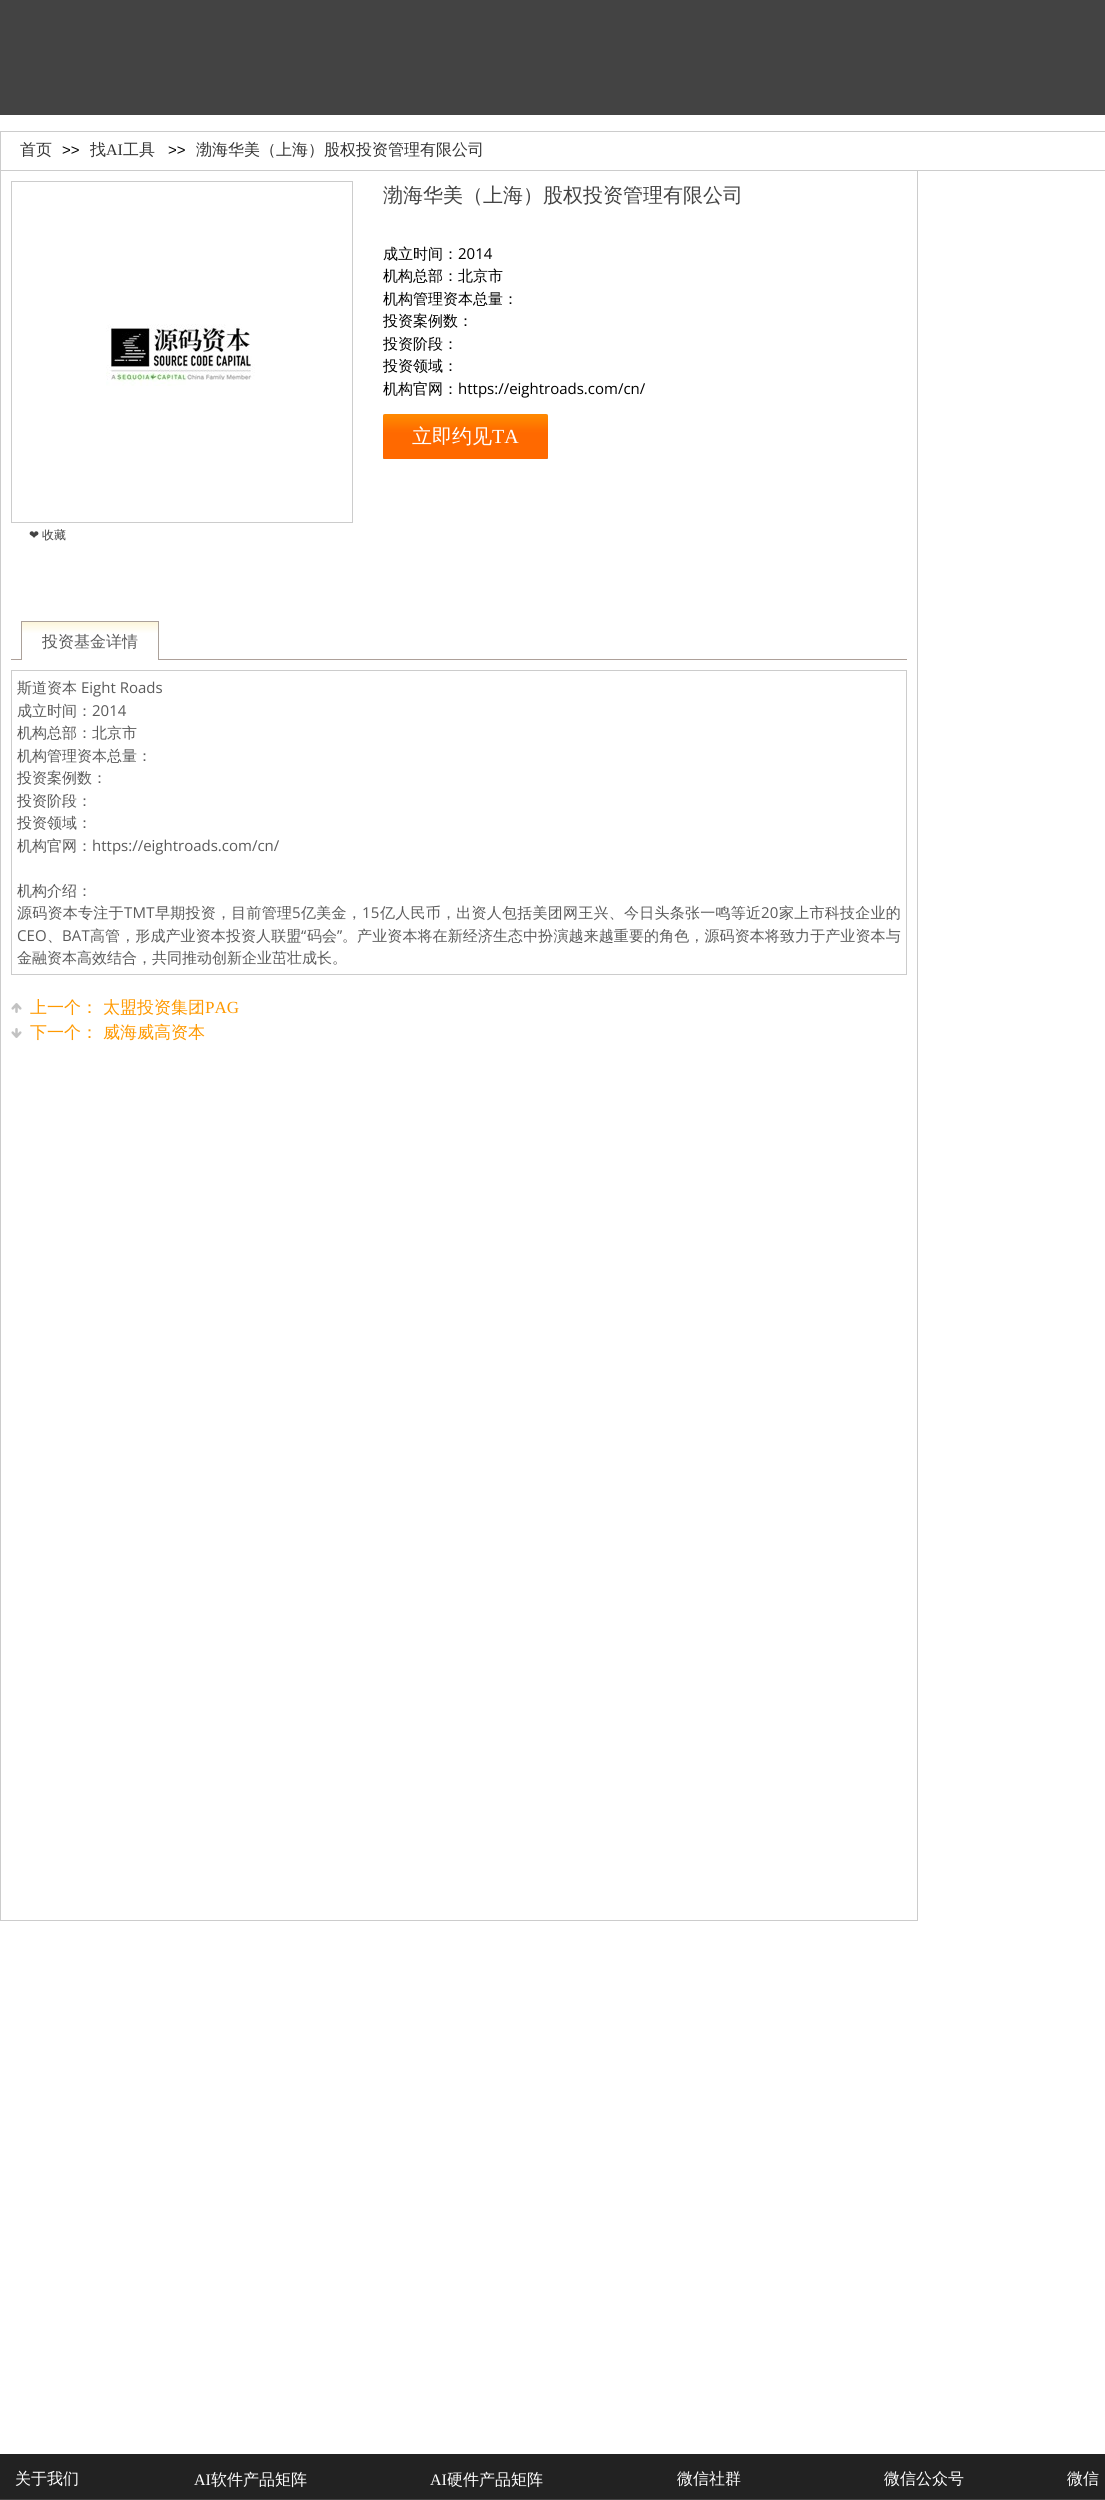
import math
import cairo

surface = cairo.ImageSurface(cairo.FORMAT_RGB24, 1105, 2500)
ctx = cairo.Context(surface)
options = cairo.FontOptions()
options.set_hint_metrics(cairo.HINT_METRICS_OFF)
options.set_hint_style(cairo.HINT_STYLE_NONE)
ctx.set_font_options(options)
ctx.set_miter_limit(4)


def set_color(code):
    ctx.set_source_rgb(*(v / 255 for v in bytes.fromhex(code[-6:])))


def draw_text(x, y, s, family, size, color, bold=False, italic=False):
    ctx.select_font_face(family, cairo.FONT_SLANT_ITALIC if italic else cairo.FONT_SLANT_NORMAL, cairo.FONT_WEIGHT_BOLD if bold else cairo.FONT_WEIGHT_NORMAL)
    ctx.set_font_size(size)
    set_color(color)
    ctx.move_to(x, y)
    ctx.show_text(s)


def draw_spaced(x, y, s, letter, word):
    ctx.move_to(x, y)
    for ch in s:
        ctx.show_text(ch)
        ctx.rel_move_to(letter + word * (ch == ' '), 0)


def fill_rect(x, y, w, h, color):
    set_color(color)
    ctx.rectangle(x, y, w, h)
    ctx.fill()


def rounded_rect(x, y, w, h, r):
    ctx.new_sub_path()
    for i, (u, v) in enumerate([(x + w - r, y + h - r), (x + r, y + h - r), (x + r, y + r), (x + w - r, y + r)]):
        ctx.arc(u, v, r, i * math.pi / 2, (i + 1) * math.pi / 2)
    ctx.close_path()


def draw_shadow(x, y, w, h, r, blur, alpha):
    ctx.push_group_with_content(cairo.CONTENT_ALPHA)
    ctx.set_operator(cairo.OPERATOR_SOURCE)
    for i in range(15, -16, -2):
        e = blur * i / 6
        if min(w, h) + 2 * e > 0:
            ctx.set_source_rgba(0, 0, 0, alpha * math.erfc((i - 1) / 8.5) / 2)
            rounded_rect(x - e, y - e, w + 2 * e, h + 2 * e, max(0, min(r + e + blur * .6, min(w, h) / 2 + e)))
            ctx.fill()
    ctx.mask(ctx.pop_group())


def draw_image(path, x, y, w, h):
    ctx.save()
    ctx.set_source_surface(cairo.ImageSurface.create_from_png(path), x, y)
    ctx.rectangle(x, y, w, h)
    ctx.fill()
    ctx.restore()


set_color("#ffffff")
ctx.paint()
fill_rect(0, 0, 1105, 115, "#434343")
ctx.rectangle(0.5, 131.5, 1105, 39)
set_color("#cccccc")
ctx.set_line_width(1)
ctx.stroke()
draw_text(20, 155, "首页", "WenQuanYi Zen Hei Medium", 16, "#333333")
draw_text(62, 155, ">>", "Liberation Sans", 15, "#000000")
draw_text(90, 155, "找", "WenQuanYi Zen Hei Medium", 16, "#333333")
draw_text(106, 155, "AI", "Liberation Serif", 16, "#333333")
draw_text(123, 155, "工具", "WenQuanYi Zen Hei Medium", 16, "#333333")
draw_text(168, 155, ">>", "Liberation Sans", 15, "#000000")
draw_text(196, 155, "渤海华美（上海）股权投资管理有限公司", "WenQuanYi Zen Hei Medium", 16, "#333333")
ctx.rectangle(0.5, 170.5, 917, 1750)
set_color("#cccccc")
ctx.stroke()
draw_text(383, 202, "渤海华美（上海）股权投资管理有限公司", "WenQuanYi Zen Hei Medium", 20, "#434343")
draw_text(383, 259, "成立时间：", "WenQuanYi Zen Hei Medium", 15, "#000000")
draw_text(458, 259, "2014", "Open Sans", 15, "#000000")
draw_text(383, 281, "机构总部：北京市", "WenQuanYi Zen Hei Medium", 15, "#000000")
draw_text(383, 304, "机构管理资本总量：", "WenQuanYi Zen Hei Medium", 15, "#000000")
draw_text(383, 326, "投资案例数：", "WenQuanYi Zen Hei Medium", 15, "#000000")
draw_text(383, 349, "投资阶段：", "WenQuanYi Zen Hei Medium", 15, "#000000")
draw_text(383, 371, "投资领域：", "WenQuanYi Zen Hei Medium", 15, "#000000")
draw_text(383, 394, "机构官网：", "WenQuanYi Zen Hei Medium", 15, "#000000")
draw_text(458, 394, "https://eightroads.com/cn/", "Open Sans", 15, "#000000")
ctx.save()
ctx.rectangle(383, 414, 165, 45)
ctx.clip()
set_color("#000000")
draw_shadow(383, 415, 165, 45, 2, 1, 0.6)
ctx.restore()
draw_image("assets/img1.png", 383, 414, 165, 45)
draw_text(412, 443, "立即约见", "WenQuanYi Zen Hei Medium", 20, "#ffffff")
draw_text(492, 443, "TA", "Liberation Serif", 20, "#ffffff")
ctx.rectangle(11.5, 181.5, 341, 341)
set_color("#cccccc")
ctx.stroke()
draw_image("assets/img2.png", 106, 324, 149, 62)
draw_text(29, 539, "❤", "DejaVu Sans", 12, "#434343")
draw_text(42, 539, "收藏", "WenQuanYi Zen Hei Medium", 12, "#434343")
fill_rect(11, 659, 896, 1, "#ada099")
gradient = cairo.LinearGradient(90, 622, 90, 660)
gradient.add_color_stop_rgba(0, 0.992, 0.965, 0.855, 1)
gradient.add_color_stop_rgba(0.3, 1, 1, 1, 1)
gradient.add_color_stop_rgba(1, 1, 1, 1, 1)
ctx.set_source(gradient)
ctx.rectangle(22, 622, 136, 38)
ctx.fill()
fill_rect(21, 621, 138, 1, "#aba19a")
fill_rect(158, 621, 1, 39, "#aba19a")
fill_rect(21, 621, 1, 39, "#aba19a")
draw_text(42, 647, "投资基金详情", "WenQuanYi Zen Hei Medium", 16, "#5a5a5a")
ctx.rectangle(11.5, 670.5, 895, 304)
set_color("#cccccc")
ctx.stroke()
draw_text(17, 693, "斯道资本", "WenQuanYi Zen Hei Medium", 15, "#5a5a5a")
draw_text(81, 693, "Eight Roads", "Open Sans", 15, "#5a5a5a")
draw_text(17, 716, "成立时间：", "WenQuanYi Zen Hei Medium", 15, "#5a5a5a")
draw_text(92, 716, "2014", "Open Sans", 15, "#5a5a5a")
draw_text(17, 738, "机构总部：北京市", "WenQuanYi Zen Hei Medium", 15, "#5a5a5a")
draw_text(17, 761, "机构管理资本总量：", "WenQuanYi Zen Hei Medium", 15, "#5a5a5a")
draw_text(17, 783, "投资案例数：", "WenQuanYi Zen Hei Medium", 15, "#5a5a5a")
draw_text(17, 806, "投资阶段：", "WenQuanYi Zen Hei Medium", 15, "#5a5a5a")
draw_text(17, 828, "投资领域：", "WenQuanYi Zen Hei Medium", 15, "#5a5a5a")
draw_text(17, 851, "机构官网：", "WenQuanYi Zen Hei Medium", 15, "#5a5a5a")
draw_text(92, 851, "https://eightroads.com/cn/", "Open Sans", 15, "#5a5a5a")
draw_text(17, 896, "机构介绍：", "WenQuanYi Zen Hei Medium", 15, "#5a5a5a")
draw_spaced(17, 918, "源码资本专注于", 0.25, 0)
ctx.select_font_face("Open Sans")
draw_spaced(124, 918, "TMT", 0.25, 0)
ctx.select_font_face("WenQuanYi Zen Hei Medium")
draw_spaced(155, 918, "早期投资，目前管理", 0.25, 0)
ctx.select_font_face("Open Sans")
draw_spaced(292, 918, "5", 0.25, 0)
ctx.select_font_face("WenQuanYi Zen Hei Medium")
draw_spaced(301, 918, "亿美金，", 0.25, 0)
ctx.select_font_face("Open Sans")
draw_spaced(362, 918, "15", 0.25, 0)
ctx.select_font_face("WenQuanYi Zen Hei Medium")
draw_spaced(380, 918, "亿人民币，出资人包括美团网王兴、今日头条张一鸣等近", 0.25, 0)
ctx.select_font_face("Open Sans")
draw_spaced(761, 918, "20", 0.25, 0)
ctx.select_font_face("WenQuanYi Zen Hei Medium")
draw_spaced(779, 918, "家上市科技企业的", 0.25, 0)
ctx.select_font_face("Open Sans")
draw_spaced(17, 941, "CEO", 0.1, 0)
draw_spaced(62, 941, "BAT", 0.1, 0)
ctx.select_font_face("WenQuanYi Zen Hei Medium")
draw_spaced(90, 941, "高管，形成产业资本投资人联盟", 0.1, 0)
ctx.select_font_face("Open Sans")
draw_spaced(301, 941, "“", 0.1, 0)
ctx.select_font_face("WenQuanYi Zen Hei Medium")
draw_spaced(307, 941, "码会", 0.1, 0)
ctx.select_font_face("Open Sans")
draw_spaced(337, 941, "”", 0.1, 0)
ctx.select_font_face("WenQuanYi Zen Hei Medium")
draw_spaced(342, 941, "。产业资本将在新经济生态中扮演越来越重要的角色，源码资本将致力于产业资本与", 0.1, 0)
draw_spaced(47, 941, "、", 0.1, 0)
draw_text(17, 963, "金融资本高效结合，共同推动创新企业茁壮成长。", "WenQuanYi Zen Hei Medium", 15, "#5a5a5a")
fill_rect(11, 1003, 11, 10, "#c2c2c2")
draw_image("assets/img3.png", 11, 1003, 11, 10)
draw_text(30, 1013, "上一个： 太盟投资集团", "WenQuanYi Zen Hei Medium", 17, "#ff9900")
draw_text(205, 1013, "PAG", "Liberation Serif", 17, "#ff9900")
fill_rect(11, 1028, 11, 10, "#c2c2c2")
draw_image("assets/img4.png", 11, 1028, 11, 10)
draw_text(30, 1038, "下一个： 威海威高资本", "WenQuanYi Zen Hei Medium", 17, "#ff9900")
fill_rect(0, 2454, 1105, 45, "#222222")
draw_text(15, 2484, "关于我们", "WenQuanYi Zen Hei Medium", 16, "#ffffff")
draw_text(194, 2485, "AI", "Liberation Serif", 16, "#ffffff")
draw_text(211, 2485, "软件产品矩阵", "WenQuanYi Zen Hei Medium", 16, "#ffffff")
draw_text(430, 2485, "AI", "Liberation Serif", 16, "#ffffff")
draw_text(447, 2485, "硬件产品矩阵", "WenQuanYi Zen Hei Medium", 16, "#ffffff")
draw_text(677, 2484, "微信社群", "WenQuanYi Zen Hei Medium", 16, "#ffffff")
draw_text(884, 2484, "微信公众号", "WenQuanYi Zen Hei Medium", 16, "#ffffff")
draw_text(1067, 2484, "微信", "WenQuanYi Zen Hei Medium", 16, "#ffffff")
fill_rect(0, 2499, 1105, 1, "#434343")
surface.write_to_png("output.png")
